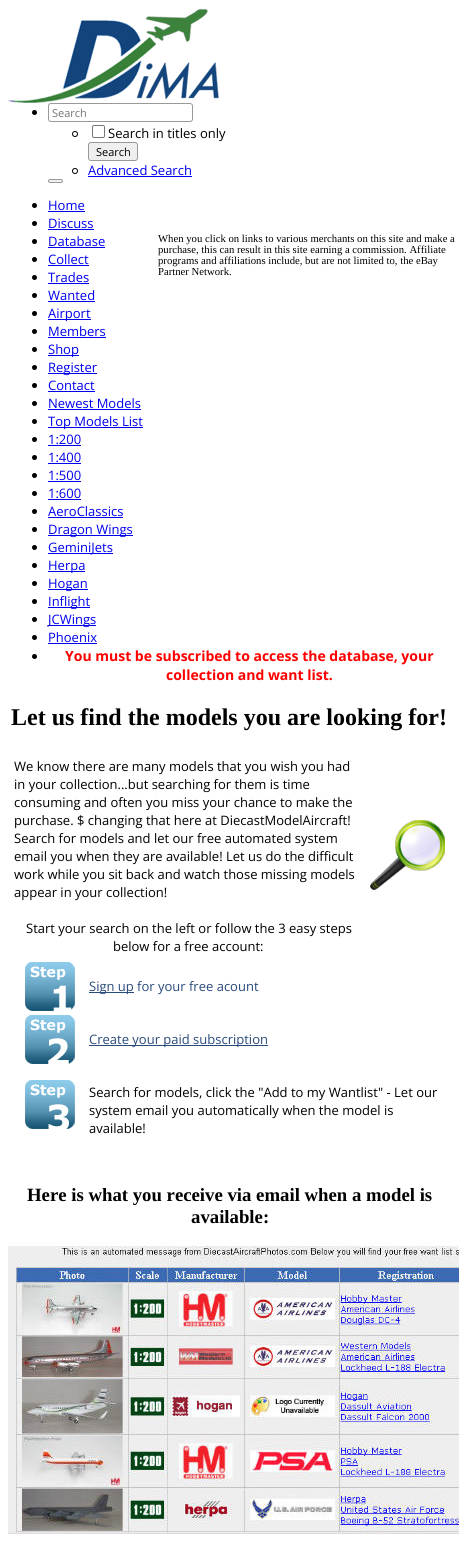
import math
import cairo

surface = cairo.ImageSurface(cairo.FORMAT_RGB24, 459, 1556)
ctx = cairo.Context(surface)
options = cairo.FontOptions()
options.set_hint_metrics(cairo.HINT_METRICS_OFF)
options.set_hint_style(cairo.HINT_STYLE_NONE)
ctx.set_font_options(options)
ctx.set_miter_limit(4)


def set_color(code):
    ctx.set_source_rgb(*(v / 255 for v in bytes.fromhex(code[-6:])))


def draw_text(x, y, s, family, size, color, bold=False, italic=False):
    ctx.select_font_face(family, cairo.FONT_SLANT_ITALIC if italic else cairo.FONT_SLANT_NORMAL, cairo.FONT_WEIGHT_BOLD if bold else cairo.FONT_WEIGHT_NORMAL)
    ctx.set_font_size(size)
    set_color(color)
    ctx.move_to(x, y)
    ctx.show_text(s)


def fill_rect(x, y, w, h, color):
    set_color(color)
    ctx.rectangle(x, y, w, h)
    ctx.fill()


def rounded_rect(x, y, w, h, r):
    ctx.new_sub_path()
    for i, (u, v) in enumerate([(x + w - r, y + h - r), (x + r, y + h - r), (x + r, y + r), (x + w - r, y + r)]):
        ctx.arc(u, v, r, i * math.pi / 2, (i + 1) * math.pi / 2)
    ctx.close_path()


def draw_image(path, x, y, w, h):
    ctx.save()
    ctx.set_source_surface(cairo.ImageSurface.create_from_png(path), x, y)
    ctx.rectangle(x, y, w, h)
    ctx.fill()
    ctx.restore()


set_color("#ffffff")
ctx.paint()
draw_image("assets/img1.png", 8, 8, 211, 95)
set_color("#000000")
ctx.arc(34.5, 112.5, 2.5, 0, 2 * math.pi)
ctx.fill()
rounded_rect(48.5, 103.5, 144, 18, 2.5)
set_color("#999999")
ctx.set_line_width(1)
ctx.stroke()
draw_text(52, 117, "Search", "Open Sans", 11, "#757575")
ctx.new_path()
ctx.arc(75, 134, 2.5, 0, 2 * math.pi)
set_color("#000000")
ctx.stroke()
rounded_rect(92.5, 125.5, 12, 12, 1.5)
set_color("#767676")
ctx.stroke()
draw_text(108, 138, "Search in titles only", "Open Sans", 13, "#000000")
set_color("#efefef")
rounded_rect(88.5, 142.5, 49, 18, 2.5)
ctx.fill_preserve()
set_color("#999999")
ctx.stroke()
draw_text(96, 156, "Search", "Open Sans", 11, "#000000")
ctx.new_path()
ctx.arc(75, 171, 2.5, 0, 2 * math.pi)
ctx.stroke()
draw_text(88, 175, "Advanced Search", "Open Sans", 13, "#0000ee")
fill_rect(88, 176, 104, 1, "#0000ee")
set_color("#efefef")
rounded_rect(48.5, 179.5, 14, 3, 1.5)
ctx.fill_preserve()
set_color("#999999")
ctx.stroke()
set_color("#000000")
ctx.arc(34.5, 205.5, 2.5, 0, 2 * math.pi)
ctx.fill()
draw_text(48, 210, "Home", "Open Sans", 13, "#0000ee")
fill_rect(48, 211, 37, 1, "#0000ee")
set_color("#000000")
ctx.new_path()
ctx.arc(34.5, 223.5, 2.5, 0, 2 * math.pi)
ctx.fill()
draw_text(48, 228, "Discuss", "Open Sans", 13, "#0000ee")
fill_rect(48, 229, 46, 1, "#0000ee")
set_color("#000000")
ctx.new_path()
ctx.arc(34.5, 241.5, 2.5, 0, 2 * math.pi)
ctx.fill()
draw_text(48, 246, "Database", "Open Sans", 13, "#0000ee")
fill_rect(48, 247, 57, 1, "#0000ee")
set_color("#000000")
ctx.new_path()
ctx.arc(34.5, 259.5, 2.5, 0, 2 * math.pi)
ctx.fill()
draw_text(48, 264, "Collect", "Open Sans", 13, "#0000ee")
fill_rect(48, 265, 41, 1, "#0000ee")
set_color("#000000")
ctx.new_path()
ctx.arc(34.5, 277.5, 2.5, 0, 2 * math.pi)
ctx.fill()
draw_text(48, 282, "Trades", "Open Sans", 13, "#0000ee")
fill_rect(48, 283, 41, 1, "#0000ee")
set_color("#000000")
ctx.new_path()
ctx.arc(34.5, 295.5, 2.5, 0, 2 * math.pi)
ctx.fill()
draw_text(48, 300, "Wanted", "Open Sans", 13, "#0000ee")
fill_rect(48, 301, 47, 1, "#0000ee")
set_color("#000000")
ctx.new_path()
ctx.arc(34.5, 313.5, 2.5, 0, 2 * math.pi)
ctx.fill()
fill_rect(48, 319, 43, 1, "#0000ee")
draw_text(48, 318, "Airport", "Open Sans", 13, "#0000ee")
set_color("#000000")
ctx.new_path()
ctx.arc(34.5, 331.5, 2.5, 0, 2 * math.pi)
ctx.fill()
draw_text(48, 336, "Members", "Open Sans", 13, "#0000ee")
fill_rect(48, 337, 58, 1, "#0000ee")
set_color("#000000")
ctx.new_path()
ctx.arc(34.5, 349.5, 2.5, 0, 2 * math.pi)
ctx.fill()
fill_rect(48, 355, 31, 1, "#0000ee")
draw_text(48, 354, "Shop", "Open Sans", 13, "#0000ee")
set_color("#000000")
ctx.new_path()
ctx.arc(34.5, 367.5, 2.5, 0, 2 * math.pi)
ctx.fill()
fill_rect(48, 373, 49, 1, "#0000ee")
draw_text(48, 372, "Register", "Open Sans", 13, "#0000ee")
set_color("#000000")
ctx.new_path()
ctx.arc(34.5, 385.5, 2.5, 0, 2 * math.pi)
ctx.fill()
draw_text(48, 390, "Contact", "Open Sans", 13, "#0000ee")
fill_rect(48, 391, 47, 1, "#0000ee")
set_color("#000000")
ctx.new_path()
ctx.arc(34.5, 403.5, 2.5, 0, 2 * math.pi)
ctx.fill()
draw_text(48, 408, "Newest Models", "Open Sans", 13, "#0000ee")
fill_rect(48, 409, 93, 1, "#0000ee")
set_color("#000000")
ctx.new_path()
ctx.arc(34.5, 421.5, 2.5, 0, 2 * math.pi)
ctx.fill()
fill_rect(48, 427, 95, 1, "#0000ee")
draw_text(48, 426, "Top Models List", "Open Sans", 13, "#0000ee")
set_color("#000000")
ctx.new_path()
ctx.arc(34.5, 439.5, 2.5, 0, 2 * math.pi)
ctx.fill()
draw_text(48, 444, "1:200", "Open Sans", 13, "#0000ee")
fill_rect(48, 445, 33, 1, "#0000ee")
set_color("#000000")
ctx.new_path()
ctx.arc(34.5, 457.5, 2.5, 0, 2 * math.pi)
ctx.fill()
draw_text(48, 462, "1:400", "Open Sans", 13, "#0000ee")
fill_rect(48, 463, 33, 1, "#0000ee")
set_color("#000000")
ctx.new_path()
ctx.arc(34.5, 475.5, 2.5, 0, 2 * math.pi)
ctx.fill()
draw_text(48, 480, "1:500", "Open Sans", 13, "#0000ee")
fill_rect(48, 481, 33, 1, "#0000ee")
set_color("#000000")
ctx.new_path()
ctx.arc(34.5, 493.5, 2.5, 0, 2 * math.pi)
ctx.fill()
draw_text(48, 498, "1:600", "Open Sans", 13, "#0000ee")
fill_rect(48, 499, 33, 1, "#0000ee")
set_color("#000000")
ctx.new_path()
ctx.arc(34.5, 511.5, 2.5, 0, 2 * math.pi)
ctx.fill()
draw_text(48, 516, "AeroClassics", "Open Sans", 13, "#0000ee")
fill_rect(48, 517, 75, 1, "#0000ee")
set_color("#000000")
ctx.new_path()
ctx.arc(34.5, 529.5, 2.5, 0, 2 * math.pi)
ctx.fill()
fill_rect(48, 535, 85, 1, "#0000ee")
draw_text(48, 534, "Dragon Wings", "Open Sans", 13, "#0000ee")
set_color("#000000")
ctx.new_path()
ctx.arc(34.5, 547.5, 2.5, 0, 2 * math.pi)
ctx.fill()
fill_rect(48, 553, 65, 1, "#0000ee")
draw_text(48, 552, "GeminiJets", "Open Sans", 13, "#0000ee")
set_color("#000000")
ctx.new_path()
ctx.arc(34.5, 565.5, 2.5, 0, 2 * math.pi)
ctx.fill()
fill_rect(48, 571, 37, 1, "#0000ee")
draw_text(48, 570, "Herpa", "Open Sans", 13, "#0000ee")
set_color("#000000")
ctx.new_path()
ctx.arc(34.5, 583.5, 2.5, 0, 2 * math.pi)
ctx.fill()
fill_rect(48, 589, 40, 1, "#0000ee")
draw_text(48, 588, "Hogan", "Open Sans", 13, "#0000ee")
set_color("#000000")
ctx.new_path()
ctx.arc(34.5, 601.5, 2.5, 0, 2 * math.pi)
ctx.fill()
fill_rect(48, 607, 42, 1, "#0000ee")
draw_text(48, 606, "Inflight", "Open Sans", 13, "#0000ee")
set_color("#000000")
ctx.new_path()
ctx.arc(34.5, 619.5, 2.5, 0, 2 * math.pi)
ctx.fill()
fill_rect(48, 625, 48, 1, "#0000ee")
draw_text(48, 624, "JCWings", "Open Sans", 13, "#0000ee")
set_color("#000000")
ctx.new_path()
ctx.arc(34.5, 637.5, 2.5, 0, 2 * math.pi)
ctx.fill()
draw_text(48, 642, "Phoenix", "Open Sans", 13, "#0000ee")
fill_rect(48, 643, 49, 1, "#0000ee")
draw_text(158, 242, "When you click on links to various merchants on this site and make a", "Liberation Serif", 10.7, "#000000")
draw_text(158, 253, "purchase, this can result in this site earning a commission. Affiliate", "Liberation Serif", 10.7, "#000000")
draw_text(158, 264, "programs and affiliations include, but are not limited to, the eBay", "Liberation Serif", 10.7, "#000000")
draw_text(158, 275, "Partner Network.", "Liberation Serif", 10.7, "#000000")
ctx.new_path()
ctx.arc(34.5, 656.5, 2.5, 0, 2 * math.pi)
ctx.fill()
draw_text(65, 661, "You must be subscribed to access the database, your", "Open Sans", 14, "#ff0000", bold=True)
draw_text(166, 680, "collection and want list.", "Open Sans", 14, "#ff0000", bold=True)
draw_text(11, 725, "Let us find the models you are looking for!", "Liberation Serif", 24, "#000000", bold=True)
draw_text(14, 771, "We know there are many models that you wish you had", "Open Sans", 13, "#000000")
draw_text(14, 789, "in your collection...but searching for them is time", "Open Sans", 13, "#000000")
draw_text(14, 807, "consuming and often you miss your chance to make the", "Open Sans", 13, "#000000")
draw_text(14, 825, "purchase. $ changing that here at DiecastModelAircraft!", "Open Sans", 13, "#000000")
draw_text(14, 843, "Search for models and let our free automated system", "Open Sans", 13, "#000000")
draw_text(14, 861, "email you when they are available! Let us do the difficult", "Open Sans", 13, "#000000")
draw_text(14, 879, "work while you sit back and watch those missing models", "Open Sans", 13, "#000000")
draw_text(14, 897, "appear in your collection!", "Open Sans", 13, "#000000")
draw_text(26, 933, "Start your search on the left or follow the 3 easy steps", "Open Sans", 13, "#000000")
draw_text(113, 951, "below for a free account:", "Open Sans", 13, "#000000")
draw_image("assets/img2.png", 370, 820, 75, 71)
draw_image("assets/img3.png", 25, 962, 50, 49)
fill_rect(89, 992, 45, 1, "#294a7b")
draw_text(89, 991, "Sign up for your free acount", "Open Sans", 13, "#294a7b")
draw_image("assets/img4.png", 25, 1015, 50, 49)
fill_rect(89, 1045, 179, 1, "#294a7b")
draw_text(89, 1044, "Create your paid subscription", "Open Sans", 13, "#294a7b")
draw_image("assets/img5.png", 25, 1080, 50, 49)
draw_text(89, 1097, "Search for models, click the \"Add to my Wantlist\" - Let our", "Open Sans", 13, "#000000")
draw_text(89, 1115, "system email you automatically when the model is", "Open Sans", 13, "#000000")
draw_text(89, 1133, "available!", "Open Sans", 13, "#000000")
draw_text(27, 1201, "Here is what you receive via email when a model is", "Liberation Serif", 18.75, "#000000", bold=True)
draw_text(191, 1223, "available:", "Liberation Serif", 18.75, "#000000", bold=True)
draw_image("assets/img6.png", 8, 1246, 451, 288)
surface.write_to_png("output.png")
